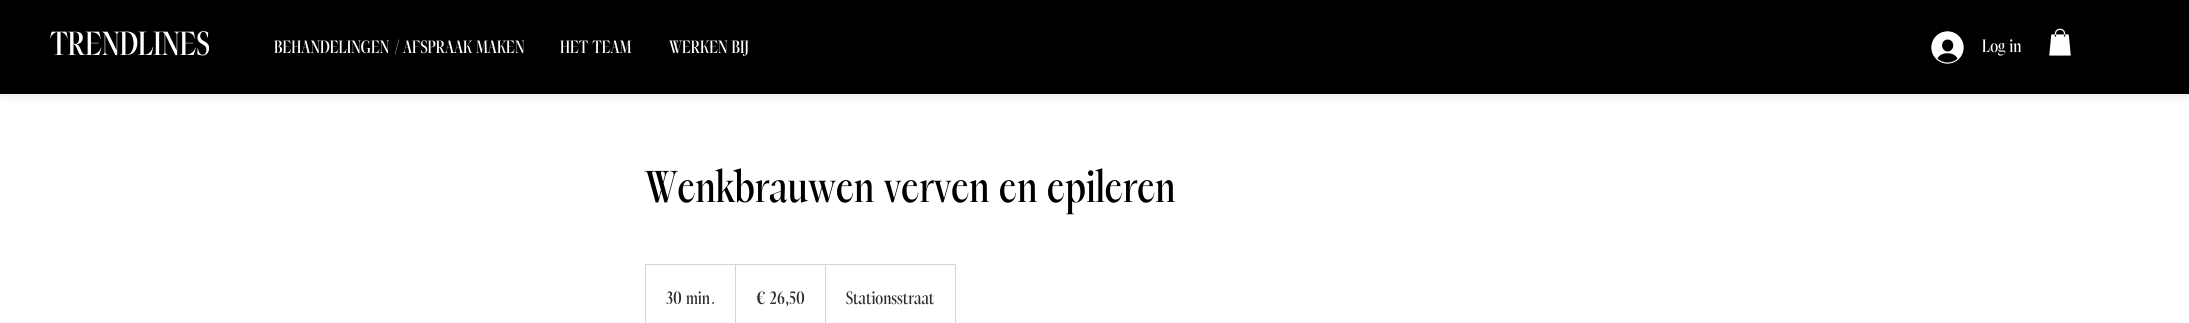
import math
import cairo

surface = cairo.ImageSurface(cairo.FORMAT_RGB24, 2189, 323)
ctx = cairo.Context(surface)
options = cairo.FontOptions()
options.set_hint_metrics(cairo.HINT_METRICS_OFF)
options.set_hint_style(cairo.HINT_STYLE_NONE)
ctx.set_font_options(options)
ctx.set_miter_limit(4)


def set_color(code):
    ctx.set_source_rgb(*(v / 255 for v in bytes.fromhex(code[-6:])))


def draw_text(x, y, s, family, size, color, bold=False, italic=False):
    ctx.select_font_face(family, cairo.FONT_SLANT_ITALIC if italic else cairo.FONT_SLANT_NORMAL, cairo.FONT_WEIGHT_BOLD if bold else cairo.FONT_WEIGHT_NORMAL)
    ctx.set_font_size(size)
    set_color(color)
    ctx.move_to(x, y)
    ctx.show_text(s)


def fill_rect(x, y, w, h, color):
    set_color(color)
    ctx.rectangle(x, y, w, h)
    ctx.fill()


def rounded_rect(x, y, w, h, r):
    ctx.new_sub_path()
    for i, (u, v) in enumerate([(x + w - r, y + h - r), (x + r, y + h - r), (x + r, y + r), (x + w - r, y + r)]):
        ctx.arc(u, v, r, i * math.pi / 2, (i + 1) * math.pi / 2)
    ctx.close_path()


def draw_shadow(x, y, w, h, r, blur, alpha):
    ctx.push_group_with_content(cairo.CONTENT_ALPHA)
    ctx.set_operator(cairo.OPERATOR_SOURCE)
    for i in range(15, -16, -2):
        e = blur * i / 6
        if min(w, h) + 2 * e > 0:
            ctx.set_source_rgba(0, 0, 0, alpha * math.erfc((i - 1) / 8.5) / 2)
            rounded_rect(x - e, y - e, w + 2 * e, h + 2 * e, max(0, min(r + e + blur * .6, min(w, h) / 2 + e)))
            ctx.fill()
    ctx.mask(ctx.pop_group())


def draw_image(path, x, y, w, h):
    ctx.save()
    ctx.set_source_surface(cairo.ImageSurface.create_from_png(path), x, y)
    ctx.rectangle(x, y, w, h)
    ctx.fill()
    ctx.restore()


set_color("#ffffff")
ctx.paint()
set_color("#000000")
draw_shadow(0, 0, 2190, 94, 0, 5, 0.15)
fill_rect(0, 0, 2189, 94, "#000000")
draw_text(50, 55, "TRENDLINES", "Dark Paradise", 37.5, "#ffffff", bold=True)
draw_text(274, 53, "BEHANDELINGEN / AFSPRAAK MAKEN", "Dark Paradise", 20, "#ffffff", bold=True)
draw_text(560, 53, "HET TEAM", "Dark Paradise", 20, "#ffffff", bold=True)
draw_text(669, 53, "WERKEN BIJ", "Dark Paradise", 20, "#ffffff", bold=True)
draw_image("assets/img1.png", 1931, 31, 33, 33)
draw_text(1982, 52, "Log in", "Dark Paradise", 20, "#ffffff", bold=True)
draw_image("assets/img2.png", 2049, 28, 22, 28)
draw_text(645, 202, "Wenkbrauwen verven en epileren", "Dark Paradise", 50, "#000000", bold=True)
ctx.rectangle(645.5, 264.5, 310, 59)
set_color("#d5d5d4")
ctx.set_line_width(1)
ctx.stroke()
draw_text(666, 304, "30 min.", "Dark Paradise", 20, "#2f2d2a", bold=True)
set_color("#d5d5d4")
ctx.new_path()
ctx.move_to(735, 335)
ctx.line_to(735, 264)
ctx.line_to(736, 265)
ctx.line_to(736, 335)
ctx.close_path()
ctx.fill()
draw_text(756, 304, "€ 26,50", "Dark Paradise", 20, "#2f2d2a", bold=True)
set_color("#d5d5d4")
ctx.new_path()
ctx.move_to(825, 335)
ctx.line_to(825, 264)
ctx.line_to(826, 265)
ctx.line_to(826, 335)
ctx.close_path()
ctx.fill()
draw_text(846, 304, "Stationsstraat", "Dark Paradise", 20, "#2f2d2a", bold=True)
surface.write_to_png("output.png")
